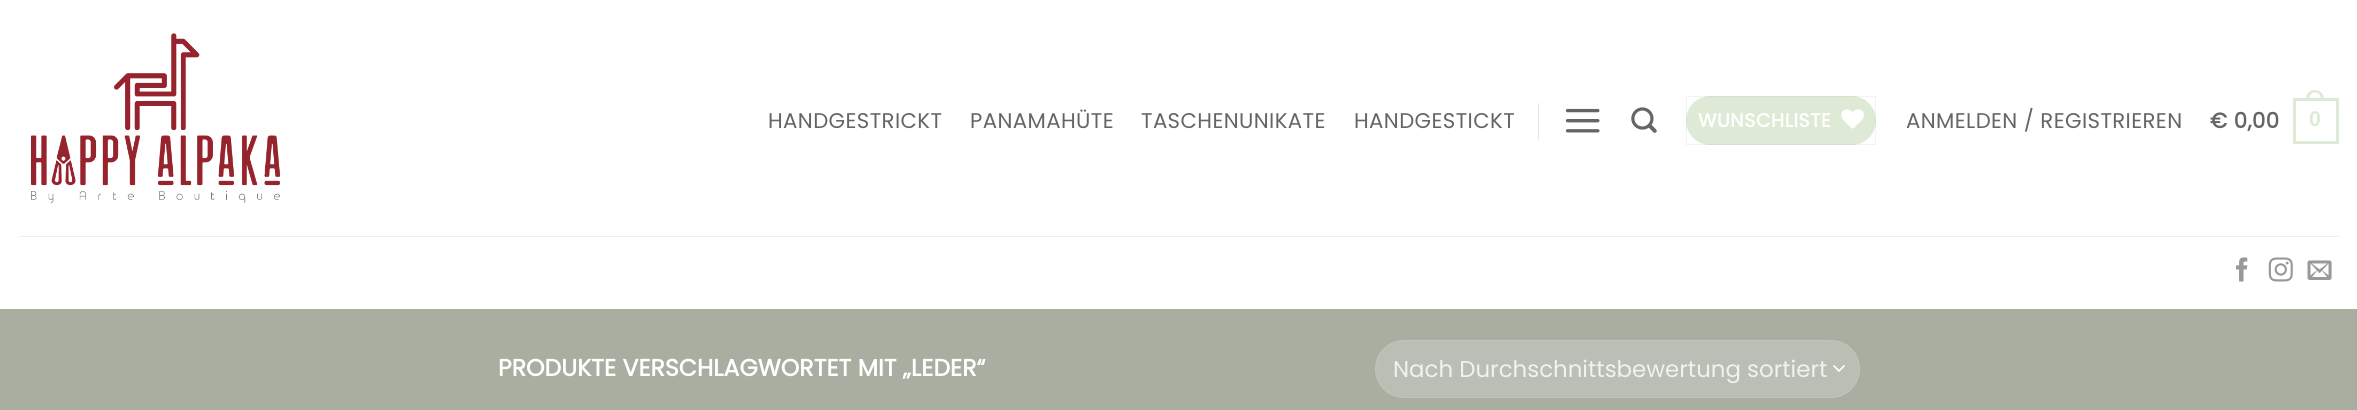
import math
import cairo

surface = cairo.ImageSurface(cairo.FORMAT_RGB24, 2357, 410)
ctx = cairo.Context(surface)
options = cairo.FontOptions()
options.set_hint_metrics(cairo.HINT_METRICS_OFF)
options.set_hint_style(cairo.HINT_STYLE_NONE)
ctx.set_font_options(options)
ctx.set_miter_limit(4)


def set_color(code):
    ctx.set_source_rgb(*(v / 255 for v in bytes.fromhex(code[-6:])))


def draw_text(x, y, s, family, size, color, bold=False, italic=False):
    ctx.select_font_face(family, cairo.FONT_SLANT_ITALIC if italic else cairo.FONT_SLANT_NORMAL, cairo.FONT_WEIGHT_BOLD if bold else cairo.FONT_WEIGHT_NORMAL)
    ctx.set_font_size(size)
    set_color(color)
    ctx.move_to(x, y)
    ctx.show_text(s)


def draw_spaced(x, y, s, letter, word):
    ctx.move_to(x, y)
    for ch in s:
        ctx.show_text(ch)
        ctx.rel_move_to(letter + word * (ch == ' '), 0)


def fill_rect(x, y, w, h, color):
    set_color(color)
    ctx.rectangle(x, y, w, h)
    ctx.fill()


def rounded_rect(x, y, w, h, r):
    ctx.new_sub_path()
    for i, (u, v) in enumerate([(x + w - r, y + h - r), (x + r, y + h - r), (x + r, y + r), (x + w - r, y + r)]):
        ctx.arc(u, v, r, i * math.pi / 2, (i + 1) * math.pi / 2)
    ctx.close_path()


def draw_image(path, x, y, w, h):
    ctx.save()
    ctx.set_source_surface(cairo.ImageSurface.create_from_png(path), x, y)
    ctx.rectangle(x, y, w, h)
    ctx.fill()
    ctx.restore()


set_color("#ffffff")
ctx.paint()
draw_image("assets/img1.png", 30, 33, 250, 170)
ctx.select_font_face("Poppins")
ctx.set_font_size(21.25)
set_color("#656565")
draw_spaced(768, 128, "HANDGESTRICKT", 0.4, 0)
draw_spaced(970, 128, "PANAMAHÜTE", 0.4, 0)
draw_spaced(1141, 128, "TASCHENUNIKATE", 0.4, 0)
draw_spaced(1354, 128, "HANDGESTICKT", 0.4, 0)
fill_rect(1538, 103, 1, 37, "#e6e6e6")
draw_image("assets/img2.png", 1565, 108, 35, 25)
draw_image("assets/img3.png", 1631, 107, 26, 26)
set_color("#dfead6")
rounded_rect(1686, 96, 190, 49, 24.5)
ctx.fill()
ctx.rectangle(1686.5, 96.5, 189, 48)
ctx.set_source_rgba(0, 0, 0, 0.05)
ctx.set_line_width(1)
ctx.stroke()
ctx.select_font_face("Poppins", cairo.FONT_SLANT_NORMAL, cairo.FONT_WEIGHT_BOLD)
ctx.set_font_size(19)
set_color("#ffffff")
draw_spaced(1698, 127, "WUNSCHLISTE", 0.5, 0)
draw_image("assets/img4.png", 1841, 109, 23, 20)
ctx.select_font_face("Poppins")
ctx.set_font_size(21.25)
set_color("#656565")
draw_spaced(1906, 128, "ANMELDEN / REGISTRIEREN", 0.4, 0)
ctx.select_font_face("Poppins", cairo.FONT_SLANT_NORMAL, cairo.FONT_WEIGHT_BOLD)
draw_spaced(2210, 128, "€ 0,00", 0.4, 0)
ctx.rectangle(2294.5, 99.5, 43, 43)
set_color("#dfead6")
ctx.set_line_width(3)
ctx.stroke()
ctx.set_fill_rule(cairo.FILL_RULE_EVEN_ODD)
ctx.new_path()
ctx.move_to(2315, 90)
ctx.curve_to(2321, 90, 2324, 94.5, 2324, 100)
ctx.line_to(2306, 100)
ctx.curve_to(2306, 94.5, 2309, 90, 2315, 90)
ctx.close_path()
ctx.move_to(2315, 92.5)
ctx.curve_to(2319.5, 92.5, 2321, 96, 2321, 100)
ctx.line_to(2309, 100)
ctx.curve_to(2309, 96, 2310.5, 92.5, 2315, 92.5)
ctx.close_path()
ctx.fill()
ctx.select_font_face("Liberation Sans", cairo.FONT_SLANT_NORMAL, cairo.FONT_WEIGHT_BOLD)
draw_spaced(2309, 126, "0", 0.4, 0)
fill_rect(19, 236, 2320, 1, "#ededed")
draw_image("assets/img5.png", 2236, 257, 12, 25)
draw_image("assets/img6.png", 2268, 257, 25, 25)
draw_image("assets/img7.png", 2307, 260, 25, 20)
fill_rect(0, 309, 2357, 101, "#a8afa1")
draw_text(498, 376, "PRODUKTE VERSCHLAGWORTET MIT „LEDER“", "Poppins", 23.6, "#ffffff", bold=True)
set_color("#b9bfb4")
rounded_rect(1375, 340, 485, 58, 29)
ctx.fill()
ctx.new_path()
ctx.move_to(1834, 366)
ctx.line_to(1839, 371)
ctx.line_to(1844, 366)
set_color("#ffffff")
ctx.set_line_width(1.7)
ctx.set_line_cap(cairo.LINE_CAP_ROUND)
ctx.set_line_join(cairo.LINE_JOIN_ROUND)
ctx.stroke()
rounded_rect(1375.5, 340.5, 484, 57, 28.5)
ctx.set_source_rgba(1, 1, 1, 0.09)
ctx.set_line_width(1)
ctx.set_line_cap(cairo.LINE_CAP_BUTT)
ctx.set_line_join(cairo.LINE_JOIN_MITER)
ctx.stroke()
draw_text(1393, 377, "Nach Durchschnittsbewertung sortiert", "Poppins", 22.9, "#f1f1f1")
surface.write_to_png("output.png")
